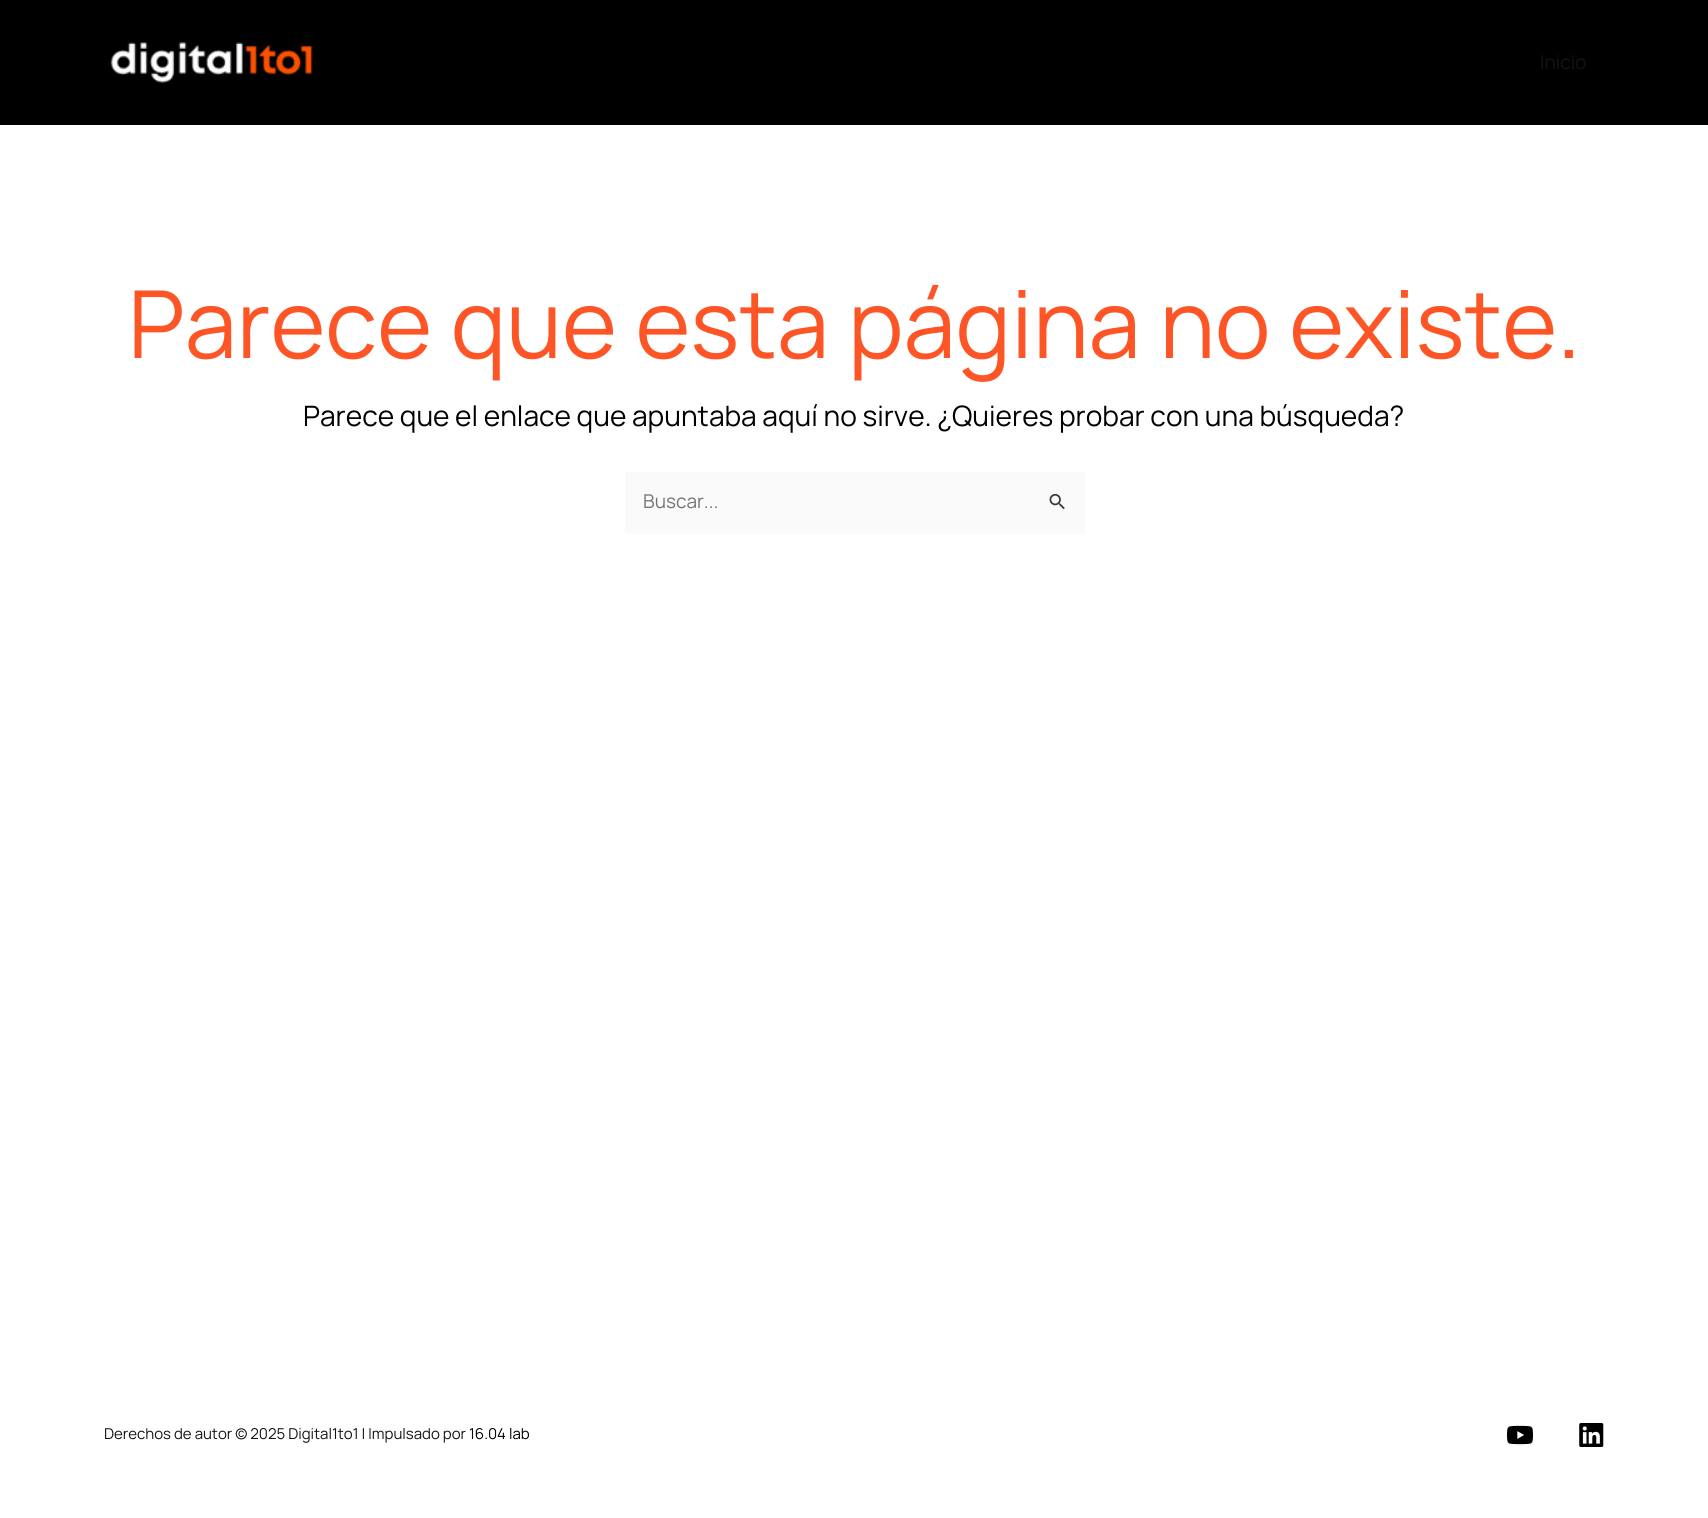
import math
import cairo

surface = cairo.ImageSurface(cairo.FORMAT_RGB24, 1708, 1518)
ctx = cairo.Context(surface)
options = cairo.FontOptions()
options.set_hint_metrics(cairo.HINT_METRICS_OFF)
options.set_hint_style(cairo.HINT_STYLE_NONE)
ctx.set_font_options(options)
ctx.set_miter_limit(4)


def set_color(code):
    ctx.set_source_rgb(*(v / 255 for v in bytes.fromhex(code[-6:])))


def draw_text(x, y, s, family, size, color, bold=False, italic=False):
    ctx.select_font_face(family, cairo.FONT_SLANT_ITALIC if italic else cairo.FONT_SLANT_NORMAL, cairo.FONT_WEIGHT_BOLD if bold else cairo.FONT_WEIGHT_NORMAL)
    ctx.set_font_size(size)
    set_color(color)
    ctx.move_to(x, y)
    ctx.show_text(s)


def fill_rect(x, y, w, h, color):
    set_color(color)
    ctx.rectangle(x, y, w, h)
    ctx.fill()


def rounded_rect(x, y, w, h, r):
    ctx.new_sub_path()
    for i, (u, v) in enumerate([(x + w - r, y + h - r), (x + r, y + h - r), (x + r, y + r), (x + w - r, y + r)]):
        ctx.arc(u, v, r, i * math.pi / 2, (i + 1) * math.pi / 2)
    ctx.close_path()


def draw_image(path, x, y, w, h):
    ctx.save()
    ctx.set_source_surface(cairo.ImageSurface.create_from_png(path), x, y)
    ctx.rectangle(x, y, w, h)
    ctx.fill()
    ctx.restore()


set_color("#ffffff")
ctx.paint()
fill_rect(0, 0, 1708, 125, "#000000")
draw_image("assets/img1.png", 110, 42, 203, 41)
draw_text(1540, 69, "Inicio", "Manrope", 19, "#141414")
draw_text(128, 358, "Parece que esta página no existe.", "Manrope", 93.75, "#fd5526")
draw_text(303, 426, "Parece que el enlace que apuntaba aquí no sirve. ¿Quieres probar con una búsqueda?", "Manrope", 28.1, "#000000")
set_color("#fafafa")
rounded_rect(624.5, 471.5, 461, 63, 2)
ctx.fill_preserve()
set_color("#ffffff")
ctx.set_line_width(1)
ctx.stroke()
draw_text(643, 508, "Buscar...", "Manrope", 19, "#757575")
draw_image("assets/img2.png", 1049, 493, 16, 17)
draw_text(104, 1439, "Derechos de autor © 2025 Digital1to1 | Impulsado por", "Manrope", 15, "#141414")
draw_text(469, 1439, "16.04 lab", "Manrope", 15, "#000000")
draw_image("assets/img3.png", 1506, 1425, 27, 20)
draw_image("assets/img4.png", 1579, 1423, 25, 24)
surface.write_to_png("output.png")
